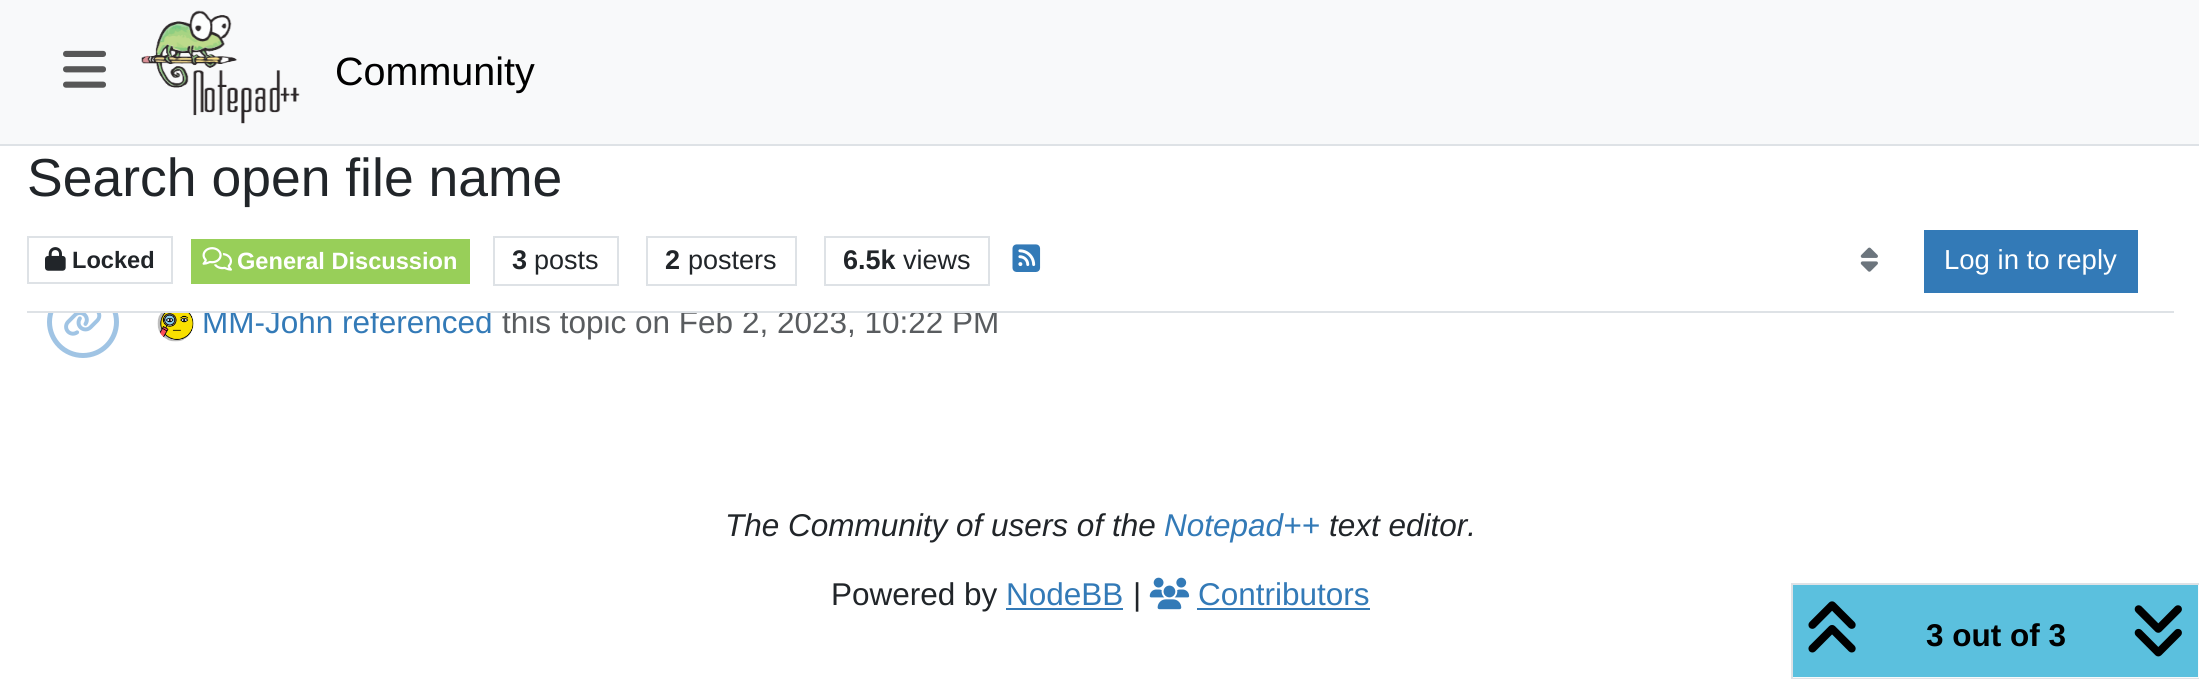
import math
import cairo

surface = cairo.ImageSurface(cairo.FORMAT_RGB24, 2199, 679)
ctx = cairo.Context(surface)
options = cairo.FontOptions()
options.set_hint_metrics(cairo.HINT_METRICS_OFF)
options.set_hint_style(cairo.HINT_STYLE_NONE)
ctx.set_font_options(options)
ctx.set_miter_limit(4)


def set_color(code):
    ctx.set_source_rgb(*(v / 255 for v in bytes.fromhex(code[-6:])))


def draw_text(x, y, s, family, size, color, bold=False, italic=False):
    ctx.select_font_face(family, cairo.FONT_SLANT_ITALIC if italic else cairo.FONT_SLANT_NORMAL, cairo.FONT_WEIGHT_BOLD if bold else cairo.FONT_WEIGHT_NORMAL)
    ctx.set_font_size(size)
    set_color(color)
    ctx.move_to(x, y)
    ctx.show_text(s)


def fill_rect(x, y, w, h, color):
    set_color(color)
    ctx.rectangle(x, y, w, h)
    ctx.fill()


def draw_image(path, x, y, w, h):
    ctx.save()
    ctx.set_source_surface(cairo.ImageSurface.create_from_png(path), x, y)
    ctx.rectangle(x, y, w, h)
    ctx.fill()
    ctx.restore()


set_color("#ffffff")
ctx.paint()
fill_rect(0, 0, 2199, 144, "#f8f9fa")
fill_rect(0, 144, 2199, 2, "#dee2e6")
draw_image("assets/img1.png", 63, 50, 43, 38)
draw_image("assets/img2.png", 141, 10, 159, 114)
draw_text(335, 85, "Community", "Liberation Sans", 39.5, "#000000")
ctx.new_path()
ctx.arc(83, 322, 33.5, 0, 2 * math.pi)
set_color("#a0c4e4")
ctx.set_line_width(5)
ctx.stroke()
draw_text(202, 333, "MM-John referenced", "Liberation Sans", 31.5, "#337ab7")
draw_text(502, 333, "this topic on Feb 2, 2023, 10:22 PM", "Liberation Sans", 31.5, "#595c5f")
fill_rect(48, 286, 673, 25, "#ffffff")
fill_rect(27, 311, 2147, 2, "#dee2e6")
draw_text(27, 196, "Search open file name", "Liberation Sans", 53.5, "#212529")
ctx.rectangle(28, 237, 144, 46)
set_color("#dee2e6")
ctx.set_line_width(2)
ctx.stroke()
draw_image("assets/img3.png", 45, 247, 21, 24)
draw_text(72, 268, "Locked", "Liberation Sans", 23.6, "#212529", bold=True)
fill_rect(191, 239, 279, 45, "#98cf59")
draw_image("assets/img4.png", 202, 247, 30, 24)
draw_text(237, 269, "General Discussion", "Liberation Sans", 23.6, "#ffffff", bold=True)
ctx.rectangle(494, 237, 124, 48)
set_color("#dee2e6")
ctx.stroke()
draw_text(512, 269, "3", "Liberation Sans", 27, "#212529", bold=True)
draw_text(534, 269, "posts", "Liberation Sans", 27, "#212529")
ctx.rectangle(647, 237, 149, 48)
set_color("#dee2e6")
ctx.stroke()
draw_text(665, 269, "2", "Liberation Sans", 27, "#212529", bold=True)
draw_text(688, 269, "posters", "Liberation Sans", 27, "#212529")
ctx.rectangle(825, 237, 164, 48)
set_color("#dee2e6")
ctx.stroke()
draw_text(843, 269, "6.5k", "Liberation Sans", 27, "#212529", bold=True)
draw_text(903, 269, "views", "Liberation Sans", 27, "#212529")
draw_image("assets/img5.png", 1012, 244, 29, 28)
draw_image("assets/img6.png", 1860, 247, 18, 25)
fill_rect(1924, 230, 214, 63, "#337ab7")
draw_text(1944, 269, "Log in to reply", "Liberation Sans", 27.5, "#ffffff")
draw_image("assets/img7.png", 64, 313, 38, 23)
draw_image("assets/img8.png", 157, 313, 37, 29)
set_color("#f8f9fa")
ctx.rectangle(1792, 584, 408, 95)
ctx.fill_preserve()
set_color("#dee2e6")
ctx.stroke()
fill_rect(1793, 585, 405, 92, "#5bc0de")
draw_image("assets/img9.png", 1808, 601, 48, 52)
draw_text(1926, 646, "3 out of 3", "Liberation Sans", 31.5, "#000000", bold=True)
draw_image("assets/img10.png", 2134, 605, 48, 52)
draw_text(725, 536, "The Community of users of the", "Liberation Sans", 31.5, "#212529", italic=True)
draw_text(1164, 536, "Notepad++", "Liberation Sans", 31.5, "#337ab7", italic=True)
draw_text(1329, 536, "text editor.", "Liberation Sans", 31.5, "#212529", italic=True)
draw_text(831, 605, "Powered by", "Liberation Sans", 31.5, "#212529")
draw_text(1006, 605, "NodeBB", "Liberation Sans", 31.5, "#337ab7")
fill_rect(1006, 608, 117, 2, "#337ab7")
draw_text(1133, 605, "|", "Liberation Sans", 31.5, "#212529")
draw_image("assets/img11.png", 1149, 577, 41, 33)
draw_text(1198, 605, "Contributors", "Liberation Sans", 31.5, "#337ab7")
fill_rect(1197, 608, 173, 2, "#337ab7")
surface.write_to_png("output.png")
